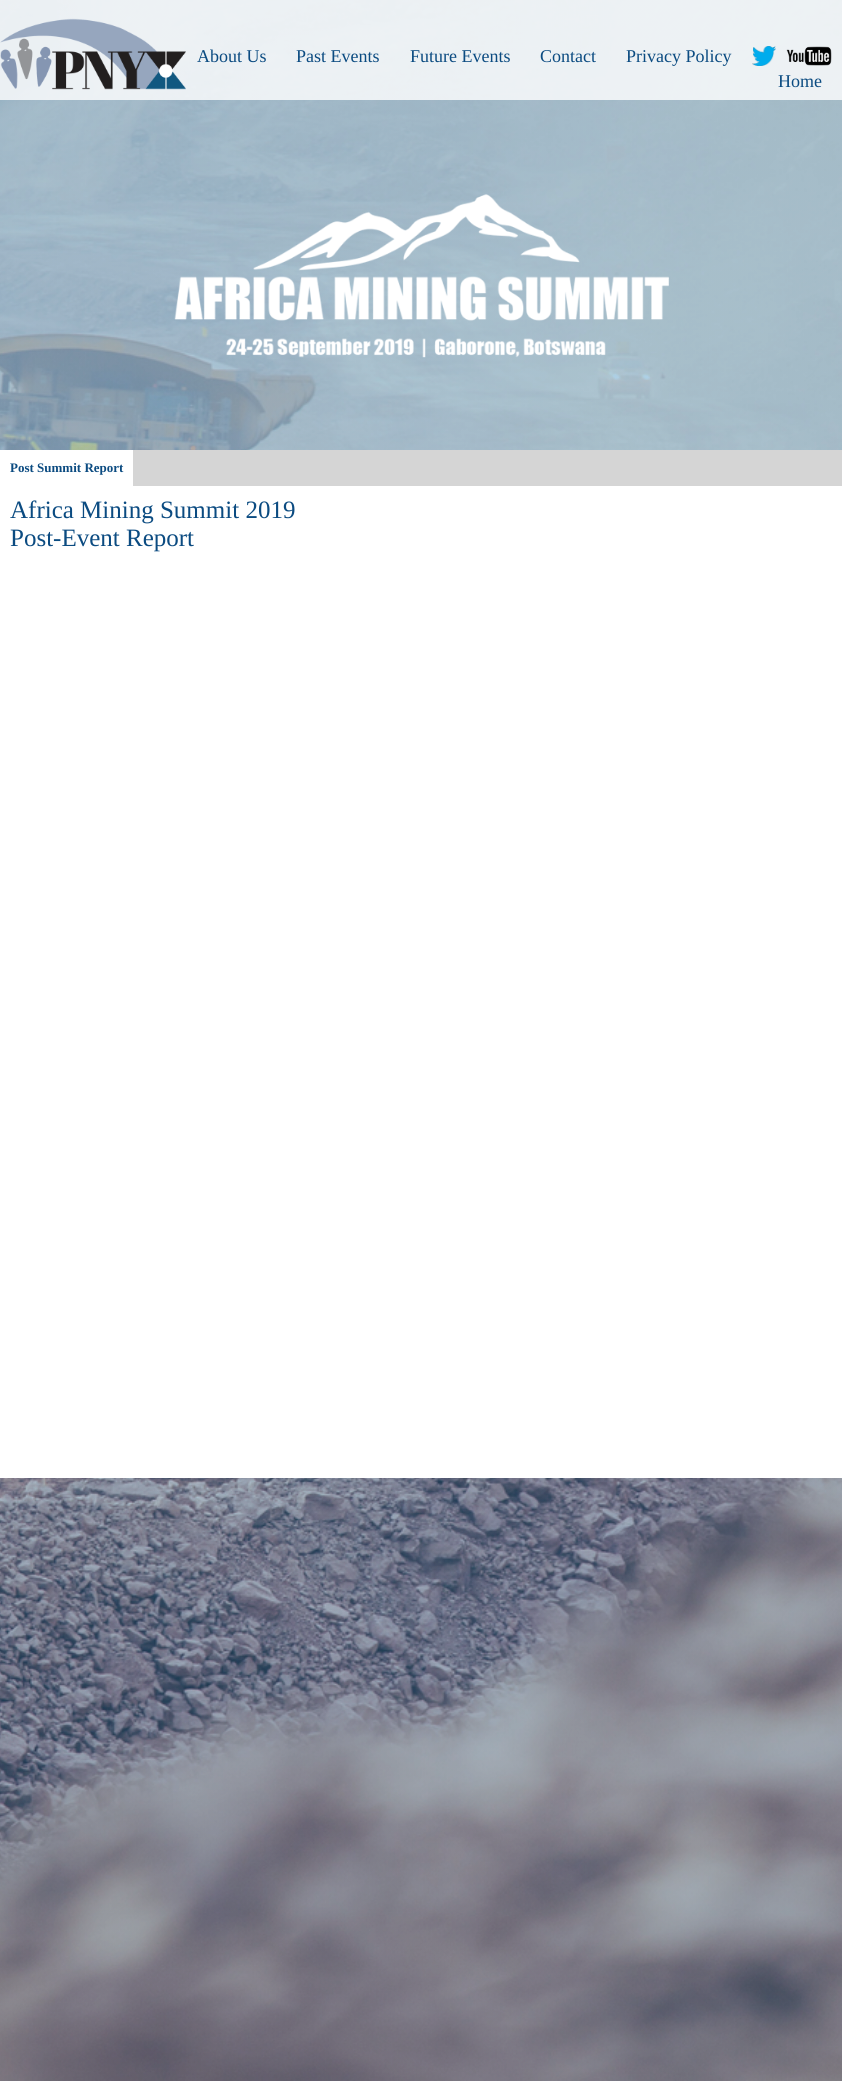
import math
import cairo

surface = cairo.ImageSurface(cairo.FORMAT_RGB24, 842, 2081)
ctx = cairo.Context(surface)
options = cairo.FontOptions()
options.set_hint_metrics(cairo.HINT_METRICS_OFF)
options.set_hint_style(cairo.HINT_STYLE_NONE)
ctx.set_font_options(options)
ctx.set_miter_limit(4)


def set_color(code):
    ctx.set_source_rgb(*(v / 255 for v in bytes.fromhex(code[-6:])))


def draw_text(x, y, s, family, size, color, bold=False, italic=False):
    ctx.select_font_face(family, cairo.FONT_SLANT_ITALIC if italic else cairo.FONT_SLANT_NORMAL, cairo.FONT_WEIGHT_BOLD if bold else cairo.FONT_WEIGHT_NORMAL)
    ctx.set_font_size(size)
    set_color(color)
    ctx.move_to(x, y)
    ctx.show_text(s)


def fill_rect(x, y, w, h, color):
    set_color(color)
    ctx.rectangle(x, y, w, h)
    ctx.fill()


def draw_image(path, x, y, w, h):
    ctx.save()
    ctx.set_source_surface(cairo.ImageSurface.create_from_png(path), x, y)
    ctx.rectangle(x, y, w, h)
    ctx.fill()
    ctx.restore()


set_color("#ffffff")
ctx.paint()
draw_image("assets/img1.png", 0, 0, 842, 2081)
ctx.set_source_rgba(1, 1, 1, 0.8)
ctx.rectangle(0, 0, 842, 100)
ctx.fill()
draw_image("assets/img2.png", 0, 18, 186, 72)
draw_text(197, 62, "About Us", "Liberation Serif", 18, "#0b4b81")
draw_text(296, 62, "Past Events", "Liberation Serif", 18, "#0b4b81")
draw_text(410, 62, "Future Events", "Liberation Serif", 18, "#0b4b81")
draw_text(540, 62, "Contact", "Liberation Serif", 18, "#0b4b81")
draw_text(626, 62, "Privacy Policy", "Liberation Serif", 18, "#0b4b81")
draw_image("assets/img3.png", 752, 46, 24, 20)
draw_image("assets/img4.png", 786, 46, 46, 20)
draw_text(778, 87, "Home", "Liberation Serif", 18, "#0b4b81")
draw_image("assets/img5.png", 174, 194, 495, 164)
fill_rect(133, 450, 709, 36, "#d5d5d5")
fill_rect(0, 450, 133, 36, "#ffffff")
draw_text(10, 472, "Post Summit Report", "Liberation Serif", 13, "#0b4b81", bold=True)
fill_rect(0, 486, 842, 992, "#ffffff")
draw_text(10, 518, "Africa Mining Summit 2019", "Liberation Serif", 25, "#0b4b81")
draw_text(10, 546, "Post-Event Report", "Liberation Serif", 25, "#0b4b81")
surface.write_to_png("output.png")
